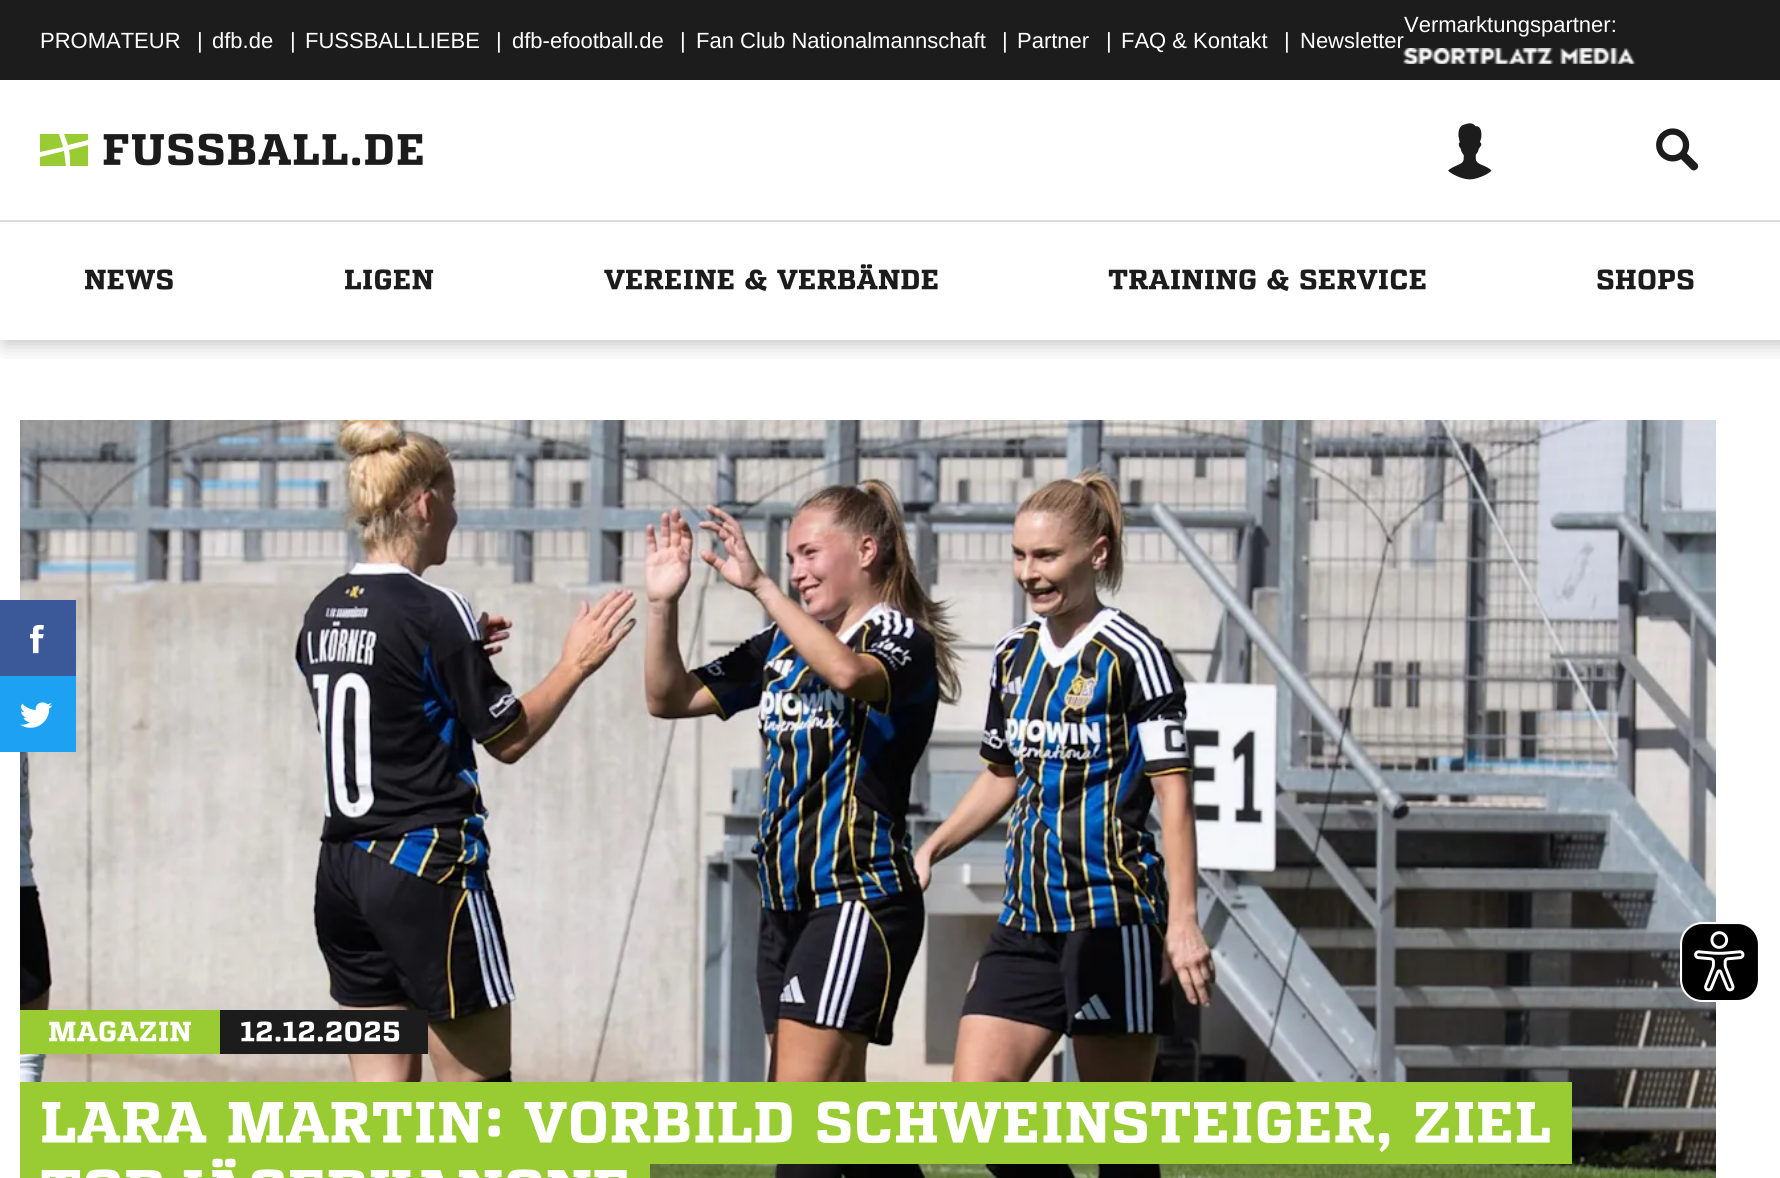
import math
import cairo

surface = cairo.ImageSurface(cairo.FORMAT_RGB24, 1780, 1178)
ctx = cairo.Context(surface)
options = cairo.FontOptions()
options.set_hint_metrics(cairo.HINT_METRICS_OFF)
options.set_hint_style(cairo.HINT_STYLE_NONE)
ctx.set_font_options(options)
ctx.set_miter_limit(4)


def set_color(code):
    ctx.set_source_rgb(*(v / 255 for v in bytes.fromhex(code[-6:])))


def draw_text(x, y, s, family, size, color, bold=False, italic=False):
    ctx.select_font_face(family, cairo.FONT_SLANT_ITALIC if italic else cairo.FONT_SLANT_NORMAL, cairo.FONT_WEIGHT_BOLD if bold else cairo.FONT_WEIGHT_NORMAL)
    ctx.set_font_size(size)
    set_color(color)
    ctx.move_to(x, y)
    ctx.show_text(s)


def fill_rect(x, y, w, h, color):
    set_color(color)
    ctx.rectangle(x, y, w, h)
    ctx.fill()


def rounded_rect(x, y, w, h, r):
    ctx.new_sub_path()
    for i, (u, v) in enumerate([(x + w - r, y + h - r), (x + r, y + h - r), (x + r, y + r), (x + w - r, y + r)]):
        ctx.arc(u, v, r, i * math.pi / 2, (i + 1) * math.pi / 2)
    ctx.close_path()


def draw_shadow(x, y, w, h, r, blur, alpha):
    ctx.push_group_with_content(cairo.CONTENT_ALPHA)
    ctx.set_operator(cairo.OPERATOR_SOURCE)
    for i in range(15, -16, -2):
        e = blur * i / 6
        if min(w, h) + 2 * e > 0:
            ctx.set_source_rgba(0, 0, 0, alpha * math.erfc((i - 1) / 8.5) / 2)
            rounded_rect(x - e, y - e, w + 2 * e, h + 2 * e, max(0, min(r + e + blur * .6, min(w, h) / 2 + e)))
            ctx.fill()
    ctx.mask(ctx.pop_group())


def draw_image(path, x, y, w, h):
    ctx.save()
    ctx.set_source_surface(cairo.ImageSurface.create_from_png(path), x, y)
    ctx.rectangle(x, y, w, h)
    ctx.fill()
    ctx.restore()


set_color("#ffffff")
ctx.paint()
ctx.save()
ctx.rectangle(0, 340, 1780, 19)
ctx.clip()
set_color("#333333")
draw_shadow(4, 4, 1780, 340, 0, 10, 0.3)
ctx.restore()
fill_rect(0, 0, 1780, 80, "#1c1c1c")
draw_text(1404, 32, "Vermarktungspartner:", "Liberation Sans", 22, "#ffffff")
draw_text(1300, 48, "Newsletter", "Liberation Sans", 22, "#ffffff")
draw_image("assets/img1.png", 1403, 48, 233, 16)
draw_text(40, 48, "PROMATEUR", "Liberation Sans", 22, "#ffffff")
draw_text(197, 48, "|", "Liberation Sans", 22, "#ffffff")
draw_text(212, 48, "dfb.de", "Liberation Sans", 22, "#ffffff")
draw_text(290, 48, "|", "Liberation Sans", 22, "#ffffff")
draw_text(305, 48, "FUSSBALLLIEBE", "Liberation Sans", 22, "#ffffff")
draw_text(496, 48, "|", "Liberation Sans", 22, "#ffffff")
draw_text(512, 48, "dfb-efootball.de", "Liberation Sans", 22, "#ffffff")
draw_text(680, 48, "|", "Liberation Sans", 22, "#ffffff")
draw_text(696, 48, "Fan Club Nationalmannschaft", "Liberation Sans", 22, "#ffffff")
draw_text(1002, 48, "|", "Liberation Sans", 22, "#ffffff")
draw_text(1017, 48, "Partner", "Liberation Sans", 22, "#ffffff")
draw_text(1106, 48, "|", "Liberation Sans", 22, "#ffffff")
draw_text(1121, 48, "FAQ & Kontakt", "Liberation Sans", 22, "#ffffff")
draw_text(1284, 48, "|", "Liberation Sans", 22, "#ffffff")
set_color("#99cc33")
ctx.set_fill_rule(cairo.FILL_RULE_EVEN_ODD)
ctx.new_path()
ctx.move_to(64, 151)
ctx.line_to(66, 166)
ctx.line_to(40, 166)
ctx.line_to(40, 157)
ctx.close_path()
ctx.move_to(40, 152)
ctx.line_to(40, 134)
ctx.line_to(59, 134)
ctx.line_to(63, 147)
ctx.close_path()
ctx.move_to(70, 166)
ctx.curve_to(70, 160, 70, 155, 69, 150)
ctx.line_to(88, 145)
ctx.line_to(88, 166)
ctx.close_path()
ctx.move_to(88, 134)
ctx.line_to(88, 140)
ctx.line_to(68, 145)
ctx.line_to(64, 134)
ctx.close_path()
ctx.fill()
draw_image("assets/img2.png", 103, 133, 320, 33)
draw_image("assets/img3.png", 1448, 123, 44, 57)
draw_image("assets/img4.png", 1656, 128, 43, 43)
fill_rect(0, 220, 1780, 2, "#dbdbdb")
draw_image("assets/img5.png", 85, 269, 88, 21)
draw_image("assets/img6.png", 345, 269, 89, 21)
draw_image("assets/img7.png", 604, 264, 334, 27)
draw_image("assets/img8.png", 1108, 269, 318, 22)
draw_image("assets/img9.png", 1597, 269, 97, 21)
draw_image("assets/img10.png", 20, 420, 1696, 758)
fill_rect(20, 1010, 200, 44, "#99cc33")
fill_rect(220, 1010, 208, 44, "#1c1c1c")
draw_image("assets/img11.png", 49, 1021, 142, 21)
draw_image("assets/img12.png", 241, 1021, 159, 21)
fill_rect(20, 1082, 20, 96, "#99cc33")
fill_rect(40, 1082, 1532, 82, "#99cc33")
draw_image("assets/img13.png", 42, 1101, 1508, 52)
fill_rect(40, 1164, 610, 14, "#99cc33")
draw_image("assets/img14.png", 41, 1158, 586, 20)
fill_rect(0, 600, 76, 76, "#3b5998")
draw_image("assets/img15.png", 30, 624, 14, 30)
fill_rect(0, 676, 76, 76, "#1da1f2")
draw_image("assets/img16.png", 20, 702, 33, 26)
draw_image("assets/img17.png", 1680, 922, 78, 80)
surface.write_to_png("output.png")
